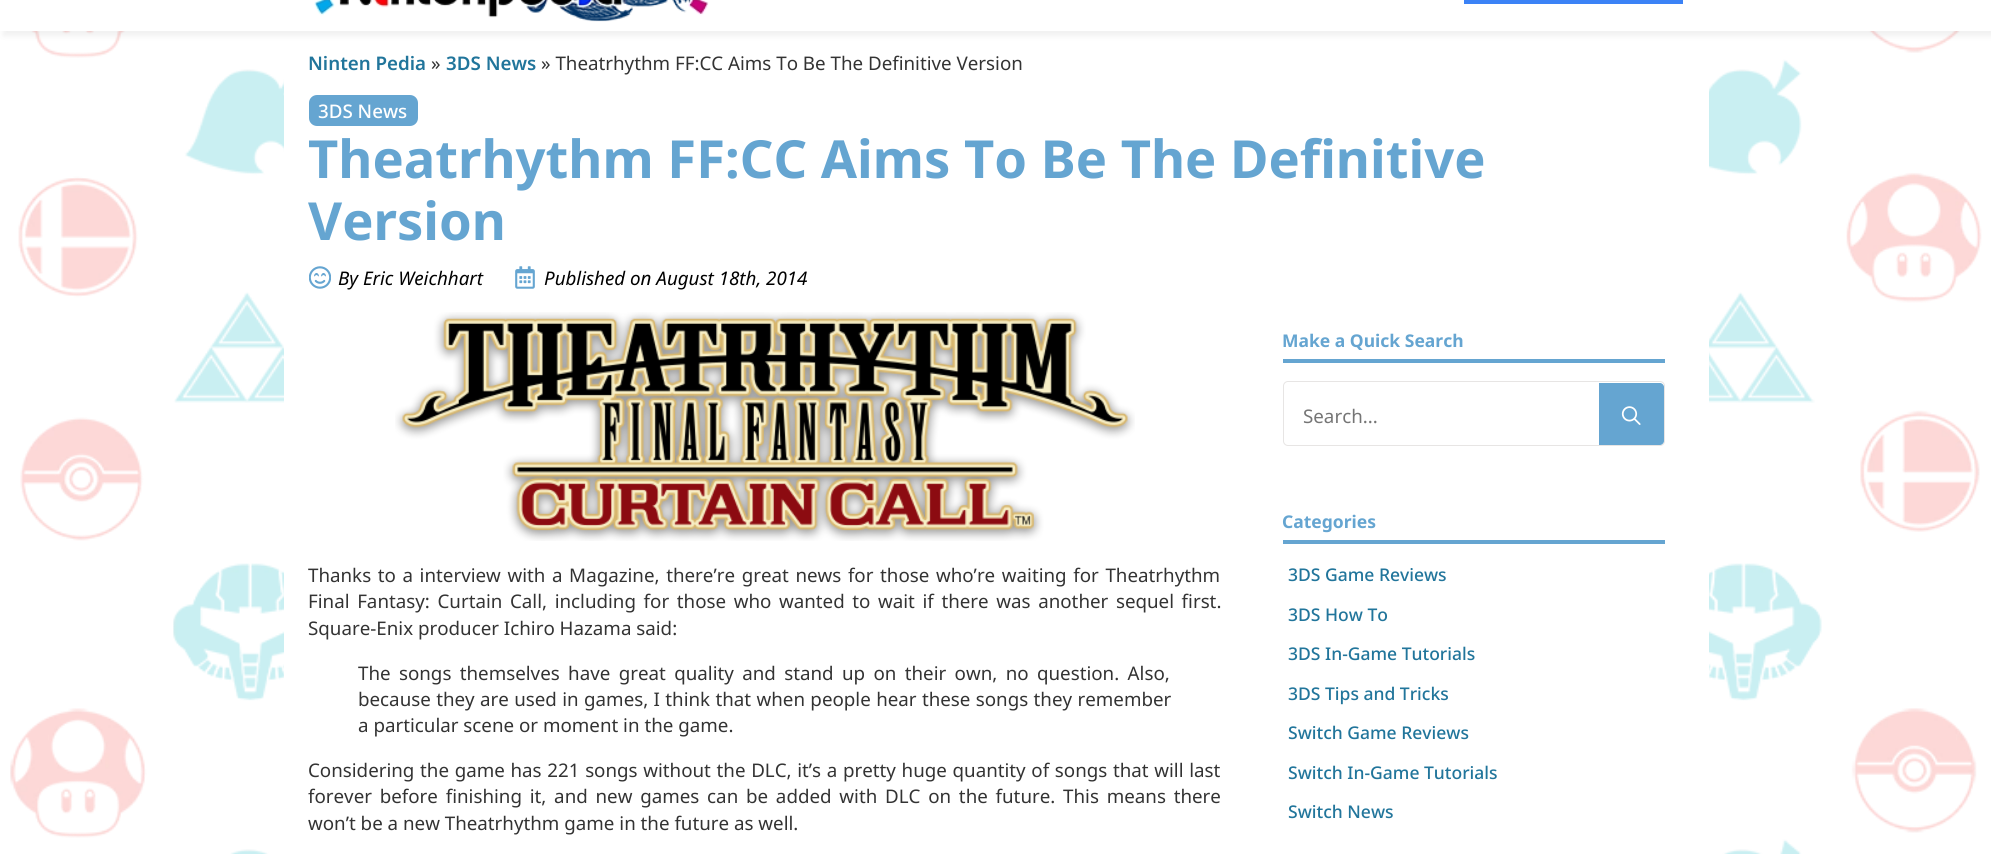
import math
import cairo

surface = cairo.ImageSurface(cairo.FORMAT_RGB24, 1991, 854)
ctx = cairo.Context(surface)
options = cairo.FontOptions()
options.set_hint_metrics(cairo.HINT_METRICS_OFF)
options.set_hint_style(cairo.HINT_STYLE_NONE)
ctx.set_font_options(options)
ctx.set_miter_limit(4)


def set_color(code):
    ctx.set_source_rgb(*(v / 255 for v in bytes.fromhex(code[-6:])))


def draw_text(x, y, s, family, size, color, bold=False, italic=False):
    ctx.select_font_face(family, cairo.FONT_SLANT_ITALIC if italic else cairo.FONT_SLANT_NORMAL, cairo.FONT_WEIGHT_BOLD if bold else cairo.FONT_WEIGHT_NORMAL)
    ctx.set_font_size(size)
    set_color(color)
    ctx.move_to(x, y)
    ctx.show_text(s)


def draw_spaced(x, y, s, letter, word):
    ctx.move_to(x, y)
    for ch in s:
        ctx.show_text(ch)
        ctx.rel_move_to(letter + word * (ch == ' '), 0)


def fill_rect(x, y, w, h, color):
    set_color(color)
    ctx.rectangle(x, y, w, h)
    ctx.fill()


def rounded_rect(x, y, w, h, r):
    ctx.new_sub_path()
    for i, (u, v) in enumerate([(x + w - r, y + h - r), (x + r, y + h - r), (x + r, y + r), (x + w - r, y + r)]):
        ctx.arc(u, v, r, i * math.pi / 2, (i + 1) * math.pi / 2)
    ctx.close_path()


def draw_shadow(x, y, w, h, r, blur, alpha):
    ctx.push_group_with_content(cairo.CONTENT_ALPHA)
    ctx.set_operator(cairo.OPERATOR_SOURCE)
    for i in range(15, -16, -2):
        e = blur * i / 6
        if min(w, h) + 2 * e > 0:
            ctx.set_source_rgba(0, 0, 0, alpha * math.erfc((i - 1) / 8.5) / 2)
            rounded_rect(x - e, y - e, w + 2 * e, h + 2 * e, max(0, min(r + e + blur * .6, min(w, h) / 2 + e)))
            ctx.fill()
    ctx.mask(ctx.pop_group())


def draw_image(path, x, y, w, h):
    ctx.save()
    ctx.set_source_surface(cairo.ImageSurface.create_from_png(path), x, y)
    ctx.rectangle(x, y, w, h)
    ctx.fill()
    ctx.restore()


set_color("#ffffff")
ctx.paint()
draw_image("assets/img1.png", 10, 31, 1972, 823)
fill_rect(284, 31, 1425, 823, "#ffffff")
set_color("#000000")
draw_shadow(3, -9, 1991, 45, 0, 3, 0.06)
fill_rect(0, 0, 1991, 31, "#ffffff")
draw_image("assets/img2.png", 314, 0, 395, 22)
fill_rect(1464, 0, 219, 4, "#3b82f6")
draw_text(308, 70, "Ninten Pedia", "Noto Sans SemiBold", 18.75, "#21759b")
draw_text(431, 70, "»", "Noto Sans", 18.75, "#333333")
draw_text(446, 70, "3DS News", "Noto Sans SemiBold", 18.75, "#21759b")
draw_text(541, 70, "» Theatrhythm FF:CC Aims To Be The Definitive Version", "Noto Sans", 18.75, "#333333")
set_color("#65a5d1")
rounded_rect(309, 95, 109, 31, 8)
ctx.fill()
draw_text(318, 118, "3DS News", "Noto Sans Medium", 18.75, "#ffffff")
draw_text(308, 178, "Theatrhythm FF:CC Aims To Be The Definitive", "Noto Sans", 52.5, "#65a5d1", bold=True)
draw_text(308, 240, "Version", "Noto Sans", 52.5, "#65a5d1", bold=True)
draw_image("assets/img3.png", 309, 266, 22, 23)
draw_text(338, 285, "By Eric Weichhart", "Noto Sans", 18.75, "#000000", italic=True)
draw_image("assets/img4.png", 515, 266, 20, 23)
draw_text(544, 285, "Published on August 18th, 2014", "Noto Sans", 18.75, "#000000", italic=True)
draw_image("assets/img5.png", 395, 312, 740, 229)
ctx.select_font_face("Noto Sans")
set_color("#333333")
draw_spaced(308, 582, "Thanks to a interview with a Magazine, there’re great news for those who’re waiting for Theatrhythm", 0, 1.75)
draw_spaced(308, 608, "Final Fantasy: Curtain Call, including for those who wanted to wait if there was another sequel first.", 0, 2.75)
draw_text(308, 635, "Square-Enix producer Ichiro Hazama said:", "Noto Sans", 18.75, "#333333")
draw_spaced(358, 680, "The songs themselves have great quality and stand up on their own, no question. Also,", 0, 3.5)
draw_spaced(358, 706, "because they are used in games, I think that when people hear these songs they remember", 0, 0.5)
draw_text(358, 732, "a particular scene or moment in the game.", "Noto Sans", 18.75, "#333333")
draw_spaced(308, 777, "Considering the game has 221 songs without the DLC, it’s a pretty huge quantity of songs that will last", 0, 0.8)
draw_spaced(308, 803, "forever before finishing it, and new games can be added with DLC on the future. This means there", 0, 2.9)
draw_text(308, 830, "won’t be a new Theatrhythm game in the future as well.", "Noto Sans", 18.75, "#333333")
fill_rect(1283, 359, 382, 4, "#65a5d1")
draw_text(1282, 347, "Make a Quick Search", "Noto Sans", 17.5, "#65a5d1", bold=True)
rounded_rect(1283.5, 381.5, 381, 64, 4.5)
set_color("#e7e5e4")
ctx.set_line_width(1)
ctx.stroke()
draw_text(1303, 423, "Search...", "Noto Sans", 18.75, "#757575")
set_color("#65a5d1")
ctx.new_path()
ctx.move_to(1599, 383)
ctx.line_to(1660, 383)
ctx.curve_to(1662, 383, 1664, 385, 1664, 387)
ctx.line_to(1664, 441)
ctx.curve_to(1664, 443, 1662, 445, 1660, 445)
ctx.line_to(1599, 445)
ctx.close_path()
ctx.fill()
draw_image("assets/img6.png", 1621, 406, 20, 19)
fill_rect(1283, 540, 382, 4, "#65a5d1")
draw_text(1282, 528, "Categories", "Noto Sans", 17.5, "#65a5d1", bold=True)
draw_text(1288, 581, "3DS Game Reviews", "Noto Sans Medium", 17.5, "#21759b")
draw_text(1288, 621, "3DS How To", "Noto Sans Medium", 17.5, "#21759b")
draw_text(1288, 660, "3DS In-Game Tutorials", "Noto Sans Medium", 17.5, "#21759b")
draw_text(1288, 700, "3DS Tips and Tricks", "Noto Sans Medium", 17.5, "#21759b")
draw_text(1288, 739, "Switch Game Reviews", "Noto Sans Medium", 17.5, "#21759b")
draw_text(1288, 779, "Switch In-Game Tutorials", "Noto Sans Medium", 17.5, "#21759b")
draw_text(1288, 818, "Switch News", "Noto Sans Medium", 17.5, "#21759b")
surface.write_to_png("output.png")
